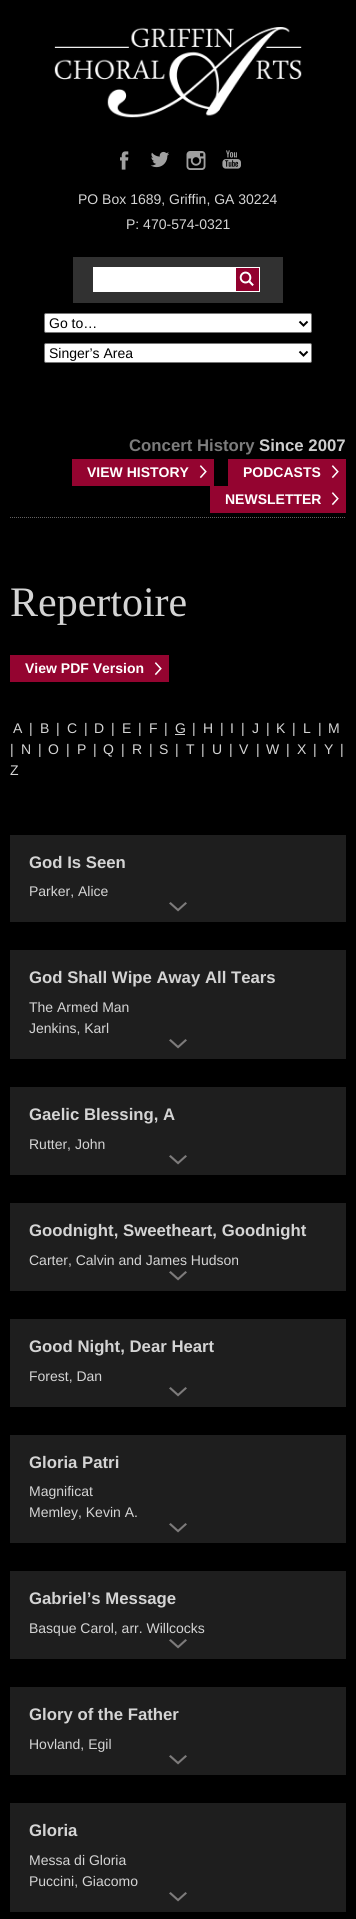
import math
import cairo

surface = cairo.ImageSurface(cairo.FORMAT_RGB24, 356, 1919)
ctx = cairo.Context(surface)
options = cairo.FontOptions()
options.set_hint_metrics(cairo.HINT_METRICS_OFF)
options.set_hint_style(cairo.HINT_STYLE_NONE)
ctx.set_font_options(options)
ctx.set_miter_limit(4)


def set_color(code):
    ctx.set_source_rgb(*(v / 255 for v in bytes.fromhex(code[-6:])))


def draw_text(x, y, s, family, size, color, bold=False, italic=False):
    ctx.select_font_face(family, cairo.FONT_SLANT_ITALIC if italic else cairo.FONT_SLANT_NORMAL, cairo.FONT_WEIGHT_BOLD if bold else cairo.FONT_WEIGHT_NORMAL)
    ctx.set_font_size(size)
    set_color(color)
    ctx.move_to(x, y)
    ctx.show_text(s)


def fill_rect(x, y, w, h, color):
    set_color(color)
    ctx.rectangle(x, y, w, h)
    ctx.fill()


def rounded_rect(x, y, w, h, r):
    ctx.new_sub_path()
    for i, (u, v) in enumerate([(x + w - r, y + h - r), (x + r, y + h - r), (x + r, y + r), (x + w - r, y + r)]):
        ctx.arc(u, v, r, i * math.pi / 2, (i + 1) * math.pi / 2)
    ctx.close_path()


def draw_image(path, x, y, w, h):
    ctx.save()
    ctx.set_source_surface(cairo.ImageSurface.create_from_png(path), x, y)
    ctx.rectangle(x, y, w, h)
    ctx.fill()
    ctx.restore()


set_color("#000000")
ctx.paint()
draw_image("assets/img1.png", 54, 27, 248, 91)
draw_image("assets/img2.png", 120, 151, 9, 19)
draw_image("assets/img3.png", 150, 151, 19, 17)
draw_image("assets/img4.png", 186, 151, 20, 19)
draw_image("assets/img5.png", 222, 150, 19, 19)
draw_text(78, 204, "PO Box 1689, Griffin, GA 30224", "Liberation Sans", 14, "#d4d4d4")
draw_text(126, 229, "P: 470-574-0321", "Liberation Sans", 14, "#d4d4d4")
fill_rect(73, 257, 210, 46, "#313131")
fill_rect(93, 267, 167, 25, "#ffffff")
draw_image("assets/img6.png", 236, 268, 23, 23)
rounded_rect(44.5, 313.5, 267, 19, 1.5)
ctx.fill_preserve()
set_color("#767676")
ctx.set_line_width(1)
ctx.stroke()
ctx.new_path()
ctx.move_to(299.5, 321.5)
ctx.line_to(303.5, 325.5)
ctx.line_to(307.5, 321.5)
set_color("#000000")
ctx.set_line_width(2)
ctx.stroke()
draw_text(49, 328, "Go to…", "Liberation Sans", 14, "#000000")
set_color("#ffffff")
rounded_rect(44.5, 343.5, 267, 19, 1.5)
ctx.fill_preserve()
set_color("#767676")
ctx.set_line_width(1)
ctx.stroke()
ctx.new_path()
ctx.move_to(299.5, 351.5)
ctx.line_to(303.5, 355.5)
ctx.line_to(307.5, 351.5)
set_color("#000000")
ctx.set_line_width(2)
ctx.stroke()
draw_text(49, 358, "Singer’s Area", "Liberation Sans", 14, "#000000")
ctx.new_path()
ctx.move_to(10, 517.5)
ctx.line_to(346, 517.5)
set_color("#636262")
ctx.set_line_width(1)
ctx.set_dash([1, 1])
ctx.stroke()
draw_text(129, 451, "Concert History", "Liberation Sans", 16.75, "#7c7c7c", bold=True)
draw_text(259, 451, "Since 2007", "Liberation Sans", 16.75, "#cdcdcd", bold=True)
fill_rect(72, 459, 142, 27, "#940430")
draw_image("assets/img7.png", 199, 465, 8, 14)
draw_text(87, 477, "VIEW HISTORY", "Liberation Sans", 14, "#ffffff", bold=True)
fill_rect(228, 459, 118, 27, "#940430")
draw_image("assets/img7.png", 331, 465, 8, 14)
draw_text(243, 477, "PODCASTS", "Liberation Sans", 14, "#ffffff", bold=True)
fill_rect(210, 486, 136, 27, "#940430")
draw_image("assets/img7.png", 331, 492, 8, 14)
draw_text(225, 504, "NEWSLETTER", "Liberation Sans", 14, "#ffffff", bold=True)
draw_text(10, 616, "Repertoire", "Liberation Serif", 42, "#d4d4d4")
fill_rect(10, 655, 159, 27, "#940430")
draw_image("assets/img7.png", 154, 662, 8, 14)
draw_text(25, 673, "View PDF Version", "Liberation Sans", 14, "#ffffff", bold=True)
draw_text(13, 733, "A", "Liberation Sans", 14, "#d4d4d4")
draw_text(29, 733, "|", "Liberation Sans", 14, "#d4d4d4")
draw_text(40, 733, "B", "Liberation Sans", 14, "#d4d4d4")
draw_text(56, 733, "|", "Liberation Sans", 14, "#d4d4d4")
draw_text(67, 733, "C", "Liberation Sans", 14, "#d4d4d4")
draw_text(84, 733, "|", "Liberation Sans", 14, "#d4d4d4")
draw_text(94, 733, "D", "Liberation Sans", 14, "#d4d4d4")
draw_text(111, 733, "|", "Liberation Sans", 14, "#d4d4d4")
draw_text(122, 733, "E", "Liberation Sans", 14, "#d4d4d4")
draw_text(138, 733, "|", "Liberation Sans", 14, "#d4d4d4")
draw_text(149, 733, "F", "Liberation Sans", 14, "#d4d4d4")
draw_text(164, 733, "|", "Liberation Sans", 14, "#d4d4d4")
draw_text(175, 733, "G", "Liberation Sans", 14, "#d4d4d4")
fill_rect(175, 734, 10, 1, "#d4d4d4")
draw_text(192, 733, "|", "Liberation Sans", 14, "#d4d4d4")
draw_text(203, 733, "H", "Liberation Sans", 14, "#d4d4d4")
draw_text(220, 733, "|", "Liberation Sans", 14, "#d4d4d4")
draw_text(230, 733, "I", "Liberation Sans", 14, "#d4d4d4")
draw_text(241, 733, "|", "Liberation Sans", 14, "#d4d4d4")
draw_text(252, 733, "J", "Liberation Sans", 14, "#d4d4d4")
draw_text(266, 733, "|", "Liberation Sans", 14, "#d4d4d4")
draw_text(276, 733, "K", "Liberation Sans", 14, "#d4d4d4")
draw_text(292, 733, "|", "Liberation Sans", 14, "#d4d4d4")
draw_text(303, 733, "L", "Liberation Sans", 14, "#d4d4d4")
draw_text(318, 733, "|", "Liberation Sans", 14, "#d4d4d4")
draw_text(328, 733, "M", "Liberation Sans", 14, "#d4d4d4")
draw_text(10, 754, "|", "Liberation Sans", 14, "#d4d4d4")
draw_text(21, 754, "N", "Liberation Sans", 14, "#d4d4d4")
draw_text(38, 754, "|", "Liberation Sans", 14, "#d4d4d4")
draw_text(48, 754, "O", "Liberation Sans", 14, "#d4d4d4")
draw_text(66, 754, "|", "Liberation Sans", 14, "#d4d4d4")
draw_text(77, 754, "P", "Liberation Sans", 14, "#d4d4d4")
draw_text(93, 754, "|", "Liberation Sans", 14, "#d4d4d4")
draw_text(103, 754, "Q", "Liberation Sans", 14, "#d4d4d4")
draw_text(121, 754, "|", "Liberation Sans", 14, "#d4d4d4")
draw_text(132, 754, "R", "Liberation Sans", 14, "#d4d4d4")
draw_text(149, 754, "|", "Liberation Sans", 14, "#d4d4d4")
draw_text(159, 754, "S", "Liberation Sans", 14, "#d4d4d4")
draw_text(175, 754, "|", "Liberation Sans", 14, "#d4d4d4")
draw_text(186, 754, "T", "Liberation Sans", 14, "#d4d4d4")
draw_text(201, 754, "|", "Liberation Sans", 14, "#d4d4d4")
draw_text(212, 754, "U", "Liberation Sans", 14, "#d4d4d4")
draw_text(229, 754, "|", "Liberation Sans", 14, "#d4d4d4")
draw_text(239, 754, "V", "Liberation Sans", 14, "#d4d4d4")
draw_text(256, 754, "|", "Liberation Sans", 14, "#d4d4d4")
draw_text(266, 754, "W", "Liberation Sans", 14, "#d4d4d4")
draw_text(286, 754, "|", "Liberation Sans", 14, "#d4d4d4")
draw_text(297, 754, "X", "Liberation Sans", 14, "#d4d4d4")
draw_text(313, 754, "|", "Liberation Sans", 14, "#d4d4d4")
draw_text(324, 754, "Y", "Liberation Sans", 14, "#d4d4d4")
draw_text(340, 754, "|", "Liberation Sans", 14, "#d4d4d4")
draw_text(10, 775, "Z", "Liberation Sans", 14, "#d4d4d4")
fill_rect(10, 835, 336, 87, "#1e1e1e")
draw_text(29, 868, "God Is Seen", "Liberation Sans", 16.75, "#d4d4d4", bold=True)
draw_text(29, 896, "Parker, Alice", "Liberation Sans", 14, "#d4d4d4")
draw_image("assets/img8.png", 169, 902, 18, 10)
fill_rect(10, 950, 336, 109, "#1e1e1e")
draw_text(29, 983, "God Shall Wipe Away All Tears", "Liberation Sans", 16.75, "#d4d4d4", bold=True)
draw_text(29, 1012, "The Armed Man", "Liberation Sans", 14, "#d4d4d4")
draw_text(29, 1033, "Jenkins, Karl", "Liberation Sans", 14, "#d4d4d4")
draw_image("assets/img8.png", 169, 1039, 18, 10)
fill_rect(10, 1087, 336, 88, "#1e1e1e")
draw_text(29, 1120, "Gaelic Blessing, A", "Liberation Sans", 16.75, "#d4d4d4", bold=True)
draw_text(29, 1149, "Rutter, John", "Liberation Sans", 14, "#d4d4d4")
draw_image("assets/img8.png", 169, 1155, 18, 10)
fill_rect(10, 1203, 336, 88, "#1e1e1e")
draw_text(29, 1236, "Goodnight, Sweetheart, Goodnight", "Liberation Sans", 16.75, "#d4d4d4", bold=True)
draw_text(29, 1265, "Carter, Calvin and James Hudson", "Liberation Sans", 14, "#d4d4d4")
draw_image("assets/img8.png", 169, 1271, 18, 10)
fill_rect(10, 1319, 336, 88, "#1e1e1e")
draw_text(29, 1352, "Good Night, Dear Heart", "Liberation Sans", 16.75, "#d4d4d4", bold=True)
draw_text(29, 1381, "Forest, Dan", "Liberation Sans", 14, "#d4d4d4")
draw_image("assets/img8.png", 169, 1387, 18, 10)
fill_rect(10, 1435, 336, 108, "#1e1e1e")
draw_text(29, 1468, "Gloria Patri", "Liberation Sans", 16.75, "#d4d4d4", bold=True)
draw_text(29, 1496, "Magnificat", "Liberation Sans", 14, "#d4d4d4")
draw_text(29, 1517, "Memley, Kevin A.", "Liberation Sans", 14, "#d4d4d4")
draw_image("assets/img8.png", 169, 1523, 18, 10)
fill_rect(10, 1571, 336, 88, "#1e1e1e")
draw_text(29, 1604, "Gabriel’s Message", "Liberation Sans", 16.75, "#d4d4d4", bold=True)
draw_text(29, 1633, "Basque Carol, arr. Willcocks", "Liberation Sans", 14, "#d4d4d4")
draw_image("assets/img8.png", 169, 1639, 18, 10)
fill_rect(10, 1687, 336, 88, "#1e1e1e")
draw_text(29, 1720, "Glory of the Father", "Liberation Sans", 16.75, "#d4d4d4", bold=True)
draw_text(29, 1749, "Hovland, Egil", "Liberation Sans", 14, "#d4d4d4")
draw_image("assets/img8.png", 169, 1755, 18, 10)
fill_rect(10, 1803, 336, 109, "#1e1e1e")
draw_text(29, 1836, "Gloria", "Liberation Sans", 16.75, "#d4d4d4", bold=True)
draw_text(29, 1865, "Messa di Gloria", "Liberation Sans", 14, "#d4d4d4")
draw_text(29, 1886, "Puccini, Giacomo", "Liberation Sans", 14, "#d4d4d4")
draw_image("assets/img8.png", 169, 1892, 18, 10)
surface.write_to_png("output.png")
